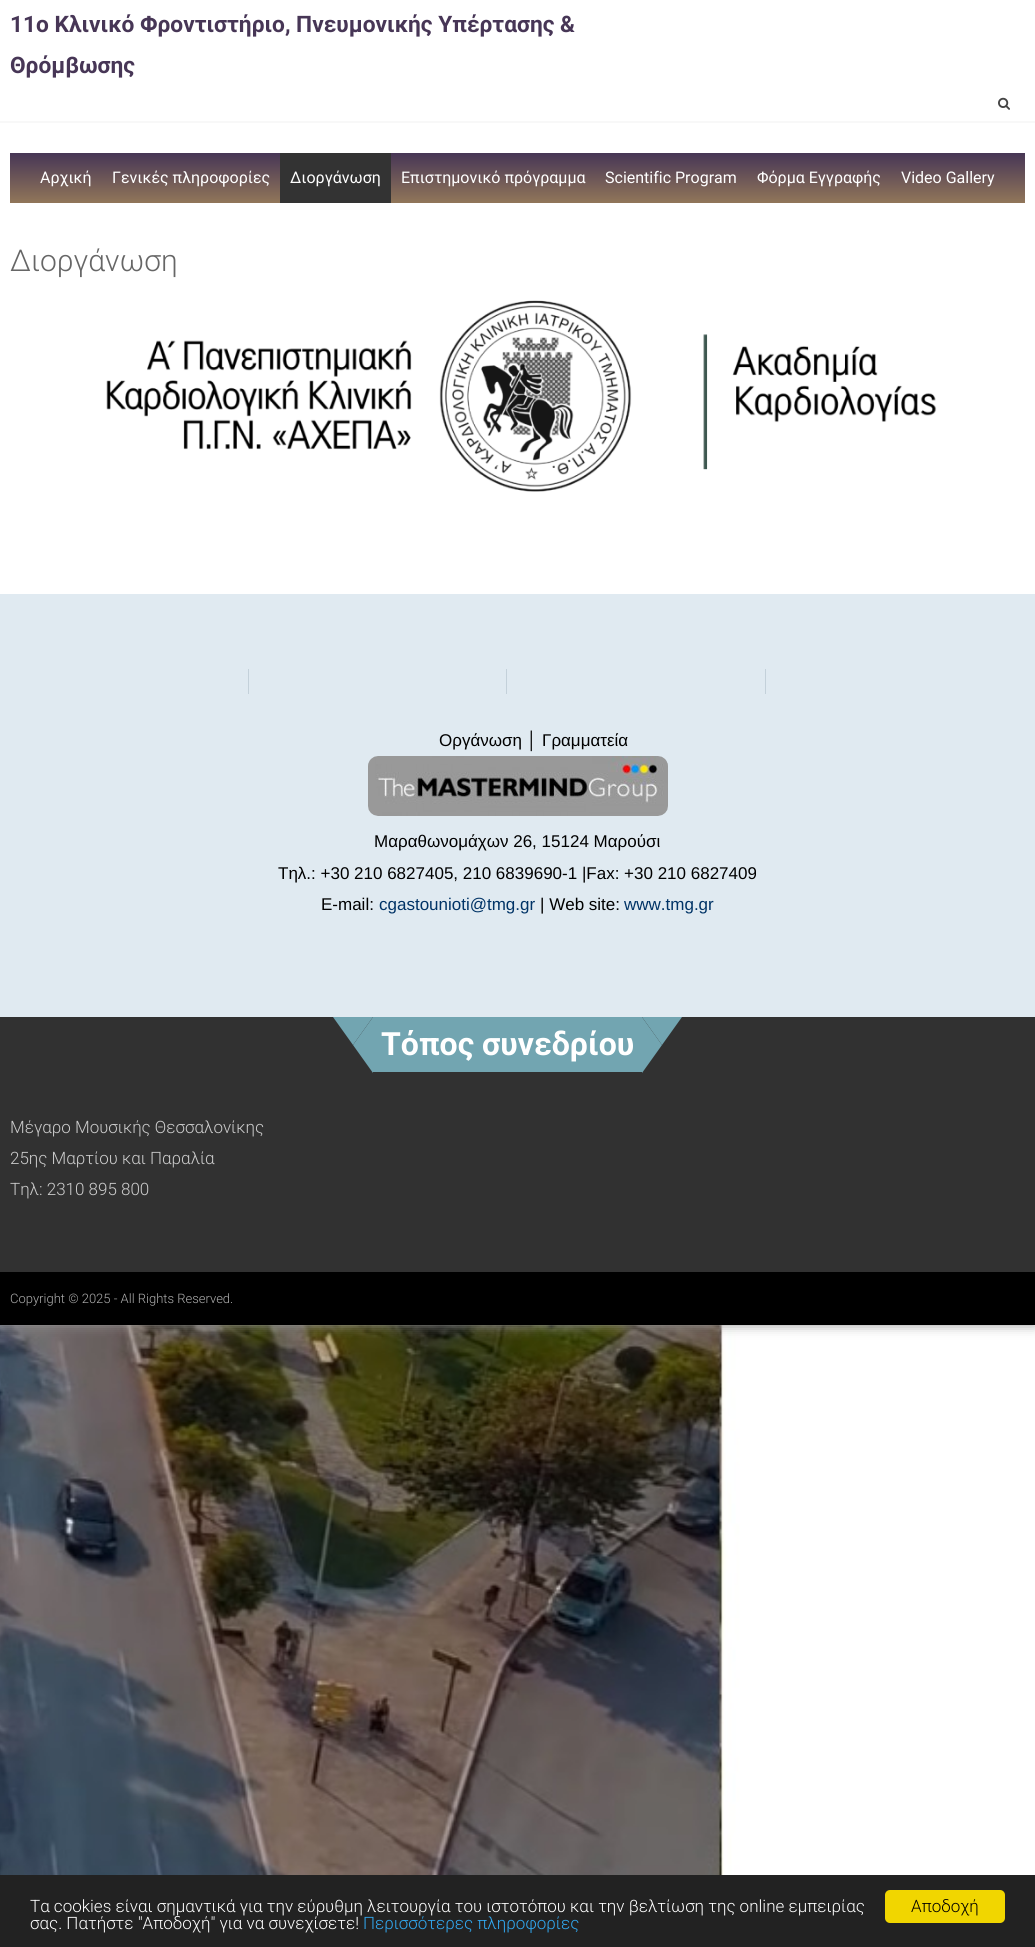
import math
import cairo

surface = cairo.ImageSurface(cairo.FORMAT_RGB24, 1035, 1947)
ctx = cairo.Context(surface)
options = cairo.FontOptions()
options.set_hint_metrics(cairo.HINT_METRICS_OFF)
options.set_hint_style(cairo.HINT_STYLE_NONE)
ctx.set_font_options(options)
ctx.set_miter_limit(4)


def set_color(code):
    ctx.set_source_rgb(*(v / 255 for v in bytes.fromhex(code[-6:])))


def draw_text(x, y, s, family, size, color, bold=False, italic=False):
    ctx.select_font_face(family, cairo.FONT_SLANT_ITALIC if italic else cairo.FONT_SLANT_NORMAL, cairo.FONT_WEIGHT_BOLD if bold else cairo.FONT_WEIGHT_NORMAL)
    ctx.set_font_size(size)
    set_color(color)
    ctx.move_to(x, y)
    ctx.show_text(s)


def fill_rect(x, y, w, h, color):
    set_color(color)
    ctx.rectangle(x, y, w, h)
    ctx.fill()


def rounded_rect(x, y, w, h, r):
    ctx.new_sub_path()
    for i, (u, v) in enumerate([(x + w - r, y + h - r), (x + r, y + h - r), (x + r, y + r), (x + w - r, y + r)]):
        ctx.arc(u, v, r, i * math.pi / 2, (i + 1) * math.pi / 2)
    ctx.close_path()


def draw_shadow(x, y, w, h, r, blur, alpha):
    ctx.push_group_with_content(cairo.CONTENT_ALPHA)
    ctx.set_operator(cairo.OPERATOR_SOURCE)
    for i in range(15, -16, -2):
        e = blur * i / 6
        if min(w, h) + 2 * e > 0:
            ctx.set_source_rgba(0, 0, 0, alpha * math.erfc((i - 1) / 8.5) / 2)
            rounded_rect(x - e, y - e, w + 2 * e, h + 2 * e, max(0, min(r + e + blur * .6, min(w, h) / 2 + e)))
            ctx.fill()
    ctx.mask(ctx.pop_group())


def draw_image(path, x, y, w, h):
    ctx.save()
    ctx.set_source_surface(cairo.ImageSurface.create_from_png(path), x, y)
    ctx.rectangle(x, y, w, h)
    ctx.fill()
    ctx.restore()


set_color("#ffffff")
ctx.paint()
draw_image("assets/img1.png", 0, 1325, 1035, 550)
set_color("#999999")
draw_shadow(0, 0, 1035, 1325, 0, 6, 1)
fill_rect(0, 0, 1035, 594, "#ffffff")
draw_text(10, 32, "11o Κλινικό Φροντιστήριο, Πνευμονικής Υπέρτασης &", "Roboto", 22.7, "#473656", bold=True)
draw_text(10, 73, "Θρόμβωσης", "Roboto", 22.7, "#473656", bold=True)
draw_image("assets/img2.png", 998, 97, 12, 13)
fill_rect(0, 121, 1035, 2, "#f8f8f8")
gradient = cairo.LinearGradient(518, 153, 518, 203)
gradient.add_color_stop_rgba(0, 0.278, 0.212, 0.337, 1)
gradient.add_color_stop_rgba(1, 0.569, 0.463, 0.349, 1)
ctx.set_source(gradient)
ctx.rectangle(10, 153, 1015, 50)
ctx.fill()
draw_text(40, 183, "Αρχική", "Roboto", 16, "#ffffff")
draw_text(112, 183, "Γενικές πληροφορίες", "Roboto", 16, "#ffffff")
fill_rect(280, 153, 111, 50, "#333333")
draw_text(290, 183, "Διοργάνωση", "Roboto", 16, "#ffffff")
draw_text(401, 183, "Επιστημονικό πρόγραμμα", "Roboto", 16, "#ffffff")
draw_text(605, 183, "Scientific Program", "Roboto", 16, "#ffffff")
draw_text(757, 183, "Φόρμα Εγγραφής", "Roboto", 16, "#ffffff")
draw_text(901, 183, "Video Gallery", "Roboto", 16, "#ffffff")
draw_text(10, 271, "Διοργάνωση", "Roboto Light", 30, "#666666")
draw_image("assets/img3.png", 106, 300, 831, 192)
fill_rect(0, 594, 1035, 423, "#e0eaf1")
fill_rect(248, 669, 1, 25, "#c4d1da")
fill_rect(506, 669, 1, 25, "#c4d1da")
fill_rect(765, 669, 1, 25, "#c4d1da")
draw_text(439, 746, "Οργάνωση │ Γραμματεία", "Liberation Sans", 17, "#000000")
draw_image("assets/img4.png", 368, 756, 300, 60)
draw_text(374, 847, "Μαραθωνομάχων 26, 15124 Μαρούσι", "Liberation Sans", 17, "#000000")
draw_text(278, 879, "Τηλ.: +30 210 6827405, 210 6839690-1 |Fax: +30 210 6827409", "Liberation Sans", 17, "#000000")
draw_text(321, 910, "E-mail:", "Liberation Sans", 17, "#000000")
draw_text(379, 910, "cgastounioti@tmg.gr", "Liberation Sans", 17, "#003366")
draw_text(540, 910, "| Web site:", "Liberation Sans", 17, "#000000")
draw_text(624, 910, "www.tmg.gr", "Liberation Sans", 17, "#003366")
fill_rect(0, 1017, 1035, 255, "#313131")
fill_rect(373, 1017, 269, 55, "#72a5b1")
ctx.new_path()
ctx.move_to(333, 1017)
ctx.line_to(373, 1017)
ctx.line_to(353, 1045)
ctx.close_path()
ctx.fill()
ctx.new_path()
ctx.move_to(373, 1017)
ctx.line_to(373, 1073)
ctx.line_to(353, 1045)
ctx.close_path()
ctx.fill()
draw_text(381, 1055, "Τόπος συνεδρίου", "Roboto", 32, "#ffffff", bold=True)
set_color("#72a5b1")
ctx.new_path()
ctx.move_to(642, 1017)
ctx.line_to(682, 1017)
ctx.line_to(662, 1045)
ctx.close_path()
ctx.fill()
ctx.new_path()
ctx.move_to(642, 1073)
ctx.line_to(642, 1017)
ctx.line_to(662, 1045)
ctx.close_path()
ctx.fill()
draw_text(10, 1133, "Μέγαρο Μουσικής Θεσσαλονίκης", "Roboto Light", 17, "#cccccc")
draw_text(10, 1164, "25ης Μαρτίου και Παραλία", "Roboto Light", 17, "#cccccc")
draw_text(10, 1195, "Τηλ: 2310 895 800", "Roboto Light", 17, "#cccccc")
fill_rect(0, 1272, 1035, 53, "#000000")
draw_text(10, 1303, "Copyright © 2025 - All Rights Reserved.", "Roboto Light", 13, "#aeaeae")
fill_rect(0, 1875, 1035, 72, "#222222")
draw_text(30, 1912, "Τα cookies είναι σημαντικά για την εύρυθμη λειτουργία του ιστοτόπου και την βελτίωση της online εμπειρίας", "Roboto Light", 17, "#ffffff")
draw_text(30, 1929, "σας. Πατήστε \"Αποδοχή\" για να συνεχίσετε!", "Roboto Light", 17, "#ffffff")
draw_text(363, 1929, "Περισσότερες πληροφορίες", "Roboto Light", 17, "#31a8f0")
set_color("#f1d600")
rounded_rect(885, 1890, 120, 33, 5)
ctx.fill()
draw_text(911, 1912, "Αποδοχή", "Roboto Light", 17, "#000000")
surface.write_to_png("output.png")
